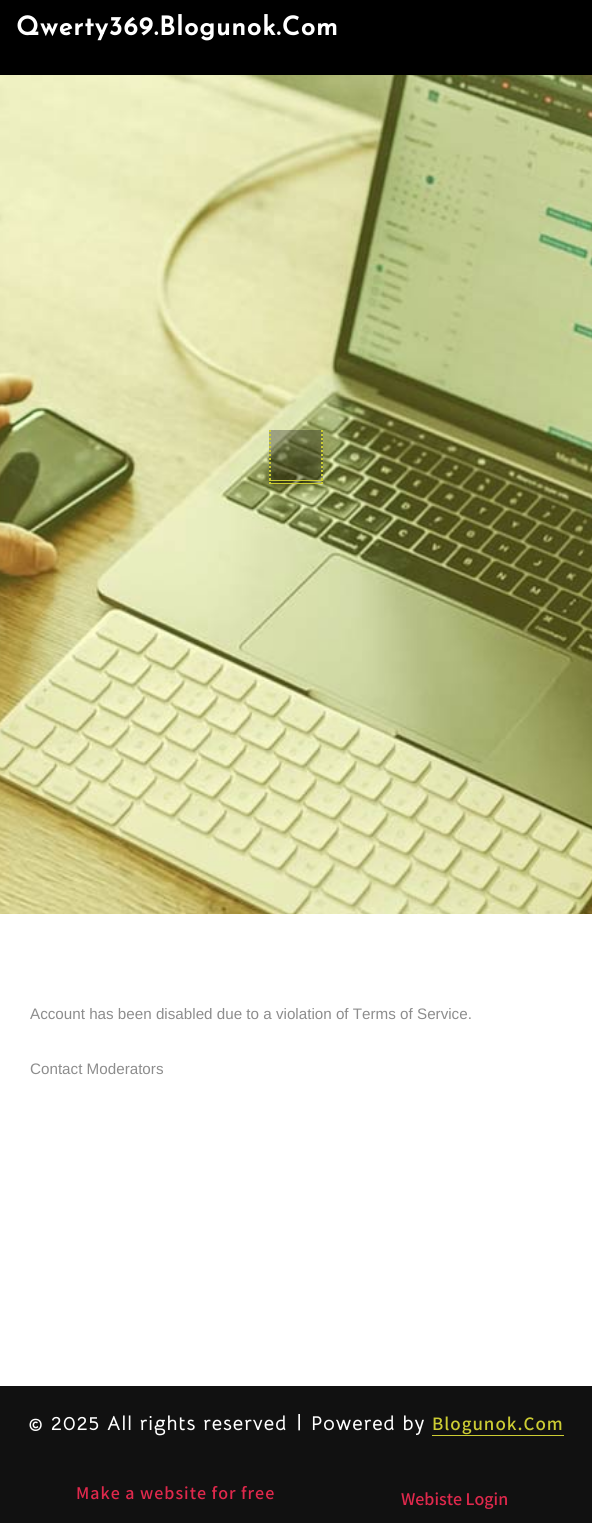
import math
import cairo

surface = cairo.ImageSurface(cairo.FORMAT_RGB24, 592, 1523)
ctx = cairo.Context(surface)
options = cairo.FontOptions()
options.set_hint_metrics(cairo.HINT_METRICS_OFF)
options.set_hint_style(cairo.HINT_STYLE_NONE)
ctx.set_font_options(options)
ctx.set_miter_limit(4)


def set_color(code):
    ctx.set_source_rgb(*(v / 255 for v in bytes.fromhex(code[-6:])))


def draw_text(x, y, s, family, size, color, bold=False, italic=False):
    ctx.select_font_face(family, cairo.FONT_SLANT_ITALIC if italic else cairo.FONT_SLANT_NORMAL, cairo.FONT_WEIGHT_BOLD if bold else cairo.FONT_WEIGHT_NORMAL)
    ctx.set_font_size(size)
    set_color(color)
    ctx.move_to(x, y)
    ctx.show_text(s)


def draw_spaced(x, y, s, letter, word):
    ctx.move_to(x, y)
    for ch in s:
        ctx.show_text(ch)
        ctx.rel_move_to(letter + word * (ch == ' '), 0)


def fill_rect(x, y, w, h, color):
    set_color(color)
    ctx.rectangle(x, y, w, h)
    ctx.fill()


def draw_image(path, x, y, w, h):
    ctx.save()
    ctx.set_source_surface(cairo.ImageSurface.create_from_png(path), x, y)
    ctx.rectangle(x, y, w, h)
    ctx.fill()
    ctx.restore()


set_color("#ffffff")
ctx.paint()
fill_rect(0, 0, 592, 75, "#000000")
ctx.select_font_face("Reem Kufi", cairo.FONT_SLANT_NORMAL, cairo.FONT_WEIGHT_BOLD)
ctx.set_font_size(26)
set_color("#ffffff")
draw_spaced(16, 35, "Qwerty369.Blogunok.Com", 1, 0)
draw_image("assets/img1.png", 0, 75, 592, 839)
ctx.set_source_rgba(0, 0, 0, 0.3)
ctx.rectangle(269, 430, 54, 53)
ctx.fill()
ctx.new_path()
ctx.move_to(322, 430)
ctx.line_to(322, 484)
set_color("#cccc33")
ctx.set_dash([2, 2])
ctx.stroke()
fill_rect(269, 480, 54, 1, "#cccc33")
fill_rect(269, 483, 54, 1, "#cccc33")
ctx.new_path()
ctx.move_to(270, 430)
ctx.line_to(270, 484)
ctx.stroke()
draw_text(30, 1019, "Account has been disabled due to a violation of Terms of Service.", "Liberation Sans", 15.2, "#8d8d8d")
draw_text(30, 1074, "Contact Moderators", "Liberation Sans", 15.2, "#8d8d8d")
fill_rect(0, 1386, 592, 137, "#111111")
ctx.select_font_face("Bellota Text", cairo.FONT_SLANT_NORMAL, cairo.FONT_WEIGHT_BOLD)
ctx.set_font_size(20)
set_color("#ffffff")
draw_spaced(28, 1430, "© 2025 All rights reserved", 1, 0)
draw_spaced(296, 1429, "|", 1, 0)
draw_spaced(311, 1430, "Powered by", 1, 0)
ctx.select_font_face("Assistant ExtraLight")
ctx.set_font_size(19)
set_color("#cccc33")
draw_spaced(432, 1430, "Blogunok.Com", 1, 0)
fill_rect(432, 1435, 132, 1, "#cccc33")
ctx.set_font_size(18)
set_color("#e0284c")
draw_spaced(76, 1499, "Make a website for free", 1, 0)
draw_text(401, 1505, "Webiste Login", "Assistant ExtraLight", 18, "#e0284c")
surface.write_to_png("output.png")
